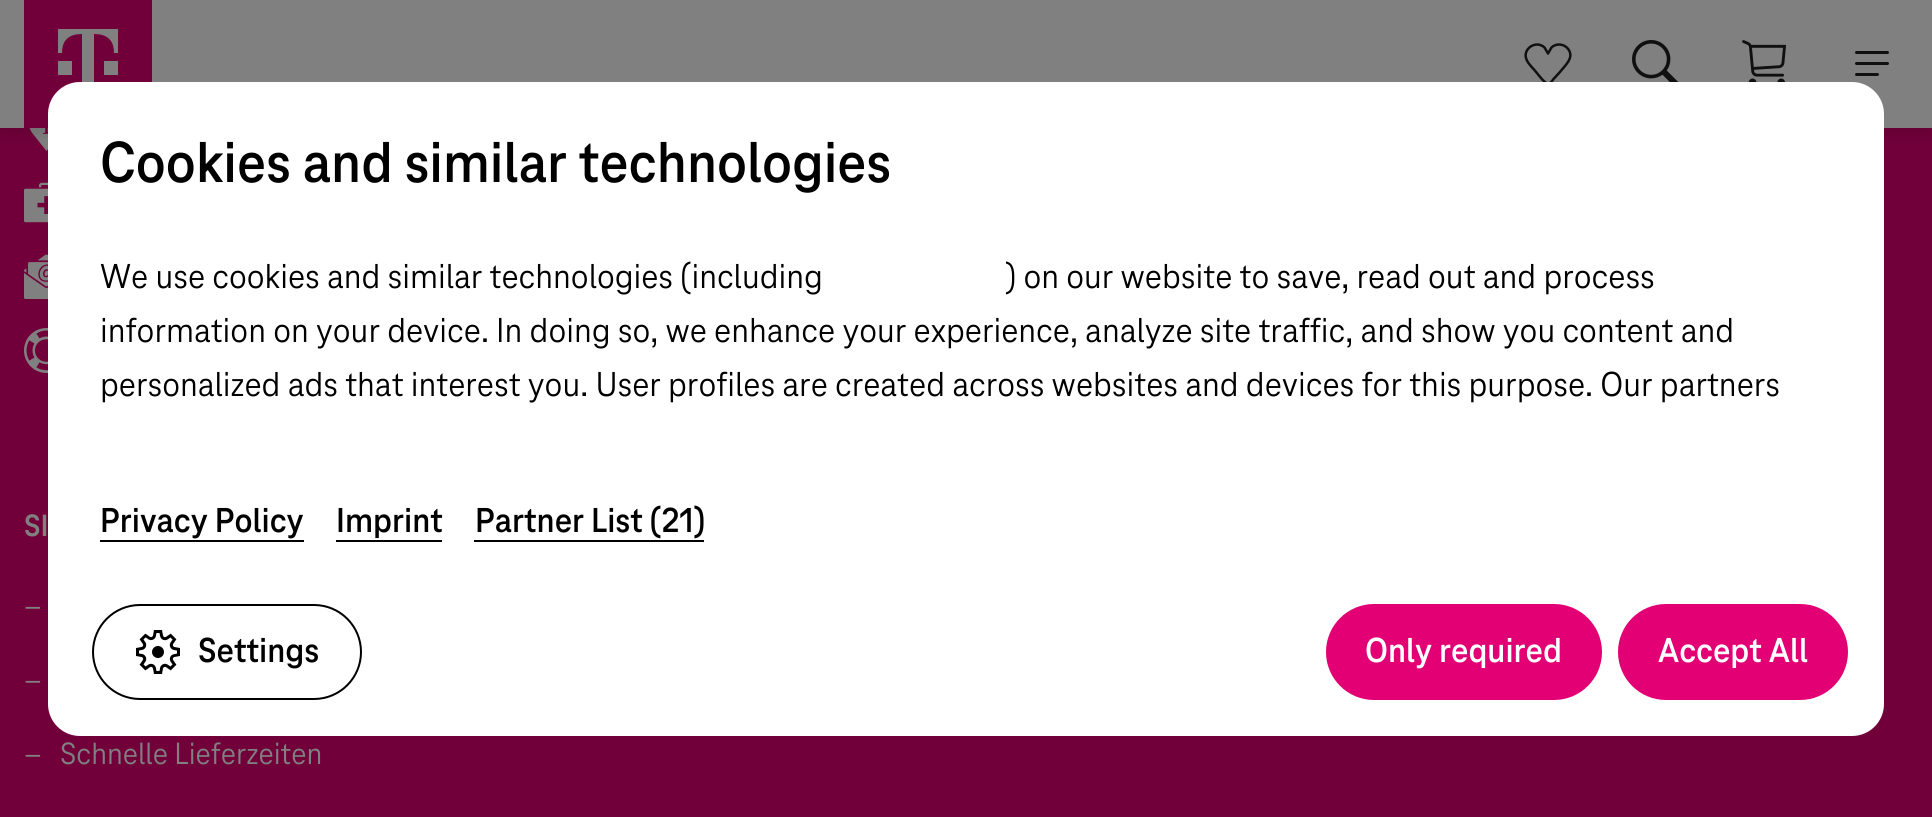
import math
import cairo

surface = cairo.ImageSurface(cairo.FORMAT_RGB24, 1932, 817)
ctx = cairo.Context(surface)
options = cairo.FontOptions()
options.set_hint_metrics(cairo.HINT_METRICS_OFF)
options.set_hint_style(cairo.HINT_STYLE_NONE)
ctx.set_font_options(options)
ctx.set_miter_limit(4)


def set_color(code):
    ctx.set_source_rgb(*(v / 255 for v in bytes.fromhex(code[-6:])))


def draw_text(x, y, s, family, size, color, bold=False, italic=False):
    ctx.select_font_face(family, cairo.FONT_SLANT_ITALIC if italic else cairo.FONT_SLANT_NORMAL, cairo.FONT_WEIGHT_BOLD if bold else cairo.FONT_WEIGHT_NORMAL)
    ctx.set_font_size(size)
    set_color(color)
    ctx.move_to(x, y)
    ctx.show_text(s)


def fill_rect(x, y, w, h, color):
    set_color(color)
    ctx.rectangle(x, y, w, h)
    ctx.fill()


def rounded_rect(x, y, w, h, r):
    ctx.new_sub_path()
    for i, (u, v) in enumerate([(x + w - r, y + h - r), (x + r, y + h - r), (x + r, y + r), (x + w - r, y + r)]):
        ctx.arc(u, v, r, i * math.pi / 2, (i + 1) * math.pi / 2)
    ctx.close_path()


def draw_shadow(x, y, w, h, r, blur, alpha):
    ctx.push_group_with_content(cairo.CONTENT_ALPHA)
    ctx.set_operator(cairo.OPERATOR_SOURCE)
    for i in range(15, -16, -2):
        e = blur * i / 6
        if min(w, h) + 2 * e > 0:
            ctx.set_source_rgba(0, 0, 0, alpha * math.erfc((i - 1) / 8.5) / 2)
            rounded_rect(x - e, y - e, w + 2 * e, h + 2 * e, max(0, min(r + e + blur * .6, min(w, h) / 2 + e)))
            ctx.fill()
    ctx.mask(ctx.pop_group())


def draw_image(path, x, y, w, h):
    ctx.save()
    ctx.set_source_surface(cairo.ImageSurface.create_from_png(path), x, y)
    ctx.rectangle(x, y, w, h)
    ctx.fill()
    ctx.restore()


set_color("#71003a")
ctx.paint()
draw_image("assets/img5.png", 29, 128, 19, 23)
set_color("#000000")
draw_shadow(0, 4, 1932, 128, 0, 9, 0.15)
fill_rect(0, 0, 1932, 128, "#808080")
fill_rect(24, 0, 128, 128, "#71003a")
set_color("#808080")
ctx.new_path()
ctx.move_to(72, 75)
ctx.line_to(58, 75)
ctx.line_to(58, 61)
ctx.line_to(72, 61)
ctx.close_path()
ctx.move_to(58, 29)
ctx.line_to(58, 53)
ctx.line_to(62, 53)
ctx.curve_to(62, 40, 69, 34, 82, 34)
ctx.line_to(82, 84)
ctx.curve_to(82, 91, 79, 94, 72, 94)
ctx.line_to(70, 94)
ctx.line_to(70, 99)
ctx.line_to(106, 99)
ctx.line_to(106, 94)
ctx.line_to(104, 94)
ctx.curve_to(97, 94, 94, 91, 94, 84)
ctx.line_to(94, 34)
ctx.curve_to(107, 34, 114, 40, 114, 53)
ctx.line_to(118, 53)
ctx.line_to(118, 29)
ctx.close_path()
ctx.move_to(104, 75)
ctx.line_to(118, 75)
ctx.line_to(118, 61)
ctx.line_to(104, 61)
ctx.close_path()
ctx.fill()
ctx.new_path()
ctx.move_to(1568.5, 49.5)
ctx.curve_to(1564.5, 43.5, 1556, 43, 1551.5, 47.5)
ctx.line_to(1548, 53.5)
ctx.line_to(1544.5, 47.5)
ctx.curve_to(1536, 39.5, 1522, 49, 1526.5, 59.5)
ctx.curve_to(1528.5, 64.5, 1533.5, 68.5, 1536.5, 72.5)
ctx.curve_to(1538.5, 75, 1544.5, 83, 1547.5, 83.5)
ctx.curve_to(1550.5, 84, 1552, 81, 1553.5, 79)
ctx.line_to(1559.5, 72.5)
ctx.curve_to(1564.5, 66, 1574.5, 58, 1568.5, 49.5)
set_color("#101010")
ctx.set_line_width(2.5)
ctx.set_line_join(cairo.LINE_JOIN_ROUND)
ctx.stroke()
set_color("#ffffff")
rounded_rect(48, 82, 1836, 654, 32)
ctx.fill()
draw_text(100, 182, "Cookies and similar technologies", "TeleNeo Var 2", 60, "#000000", bold=True)
draw_text(100, 288, "We use cookies and similar technologies (including", "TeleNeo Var", 36, "#000000")
draw_text(1005, 288, ") on our website to save, read out and process", "TeleNeo Var", 36, "#000000")
draw_text(100, 342, "information on your device. In doing so, we enhance your experience, analyze site traffic, and show you content and", "TeleNeo Var", 36, "#000000")
draw_text(100, 396, "personalized ads that interest you. User profiles are created across websites and devices for this purpose. Our partners", "TeleNeo Var", 36, "#000000")
draw_text(100, 532, "Privacy Policy", "TeleNeo Var 2", 36, "#000000", bold=True)
fill_rect(100, 540, 204, 2, "#000000")
draw_text(336, 532, "Imprint", "TeleNeo Var 2", 36, "#000000", bold=True)
fill_rect(336, 540, 106, 2, "#000000")
draw_text(475, 532, "Partner List (21)", "TeleNeo Var 2", 36, "#000000", bold=True)
fill_rect(474, 540, 230, 2, "#000000")
rounded_rect(93, 605, 268, 94, 47)
ctx.set_line_width(2)
ctx.set_line_join(cairo.LINE_JOIN_MITER)
ctx.stroke()
draw_image("assets/img1.png", 136, 630, 44, 44)
draw_text(198, 662, "Settings", "TeleNeo Var 2", 36, "#000000", bold=True)
set_color("#e20074")
rounded_rect(1326, 604, 276, 96, 48)
ctx.fill()
draw_text(1365, 662, "Only required", "TeleNeo Var 2", 36, "#ffffff", bold=True)
set_color("#e20074")
rounded_rect(1618, 604, 230, 96, 48)
ctx.fill()
draw_text(1658, 662, "Accept All", "TeleNeo Var 2", 36, "#ffffff", bold=True)
draw_image("assets/img2.png", 1632, 40, 47, 42)
draw_image("assets/img3.png", 1742, 40, 45, 42)
draw_image("assets/img4.png", 1855, 51, 34, 25)
draw_image("assets/img6.png", 24, 182, 24, 41)
draw_image("assets/img7.png", 24, 254, 24, 45)
draw_image("assets/img8.png", 24, 328, 24, 45)
draw_text(24, 536, "SI", "TeleNeo Var", 32, "#808080", bold=True)
draw_text(24, 616, "–", "TeleNeo Var", 32, "#808080")
draw_text(24, 690, "–", "TeleNeo Var", 32, "#808080")
draw_text(24, 764, "–", "TeleNeo Var", 32, "#808080")
draw_text(60, 764, "Schnelle Lieferzeiten", "TeleNeo Var", 32, "#808080")
surface.write_to_png("output.png")
